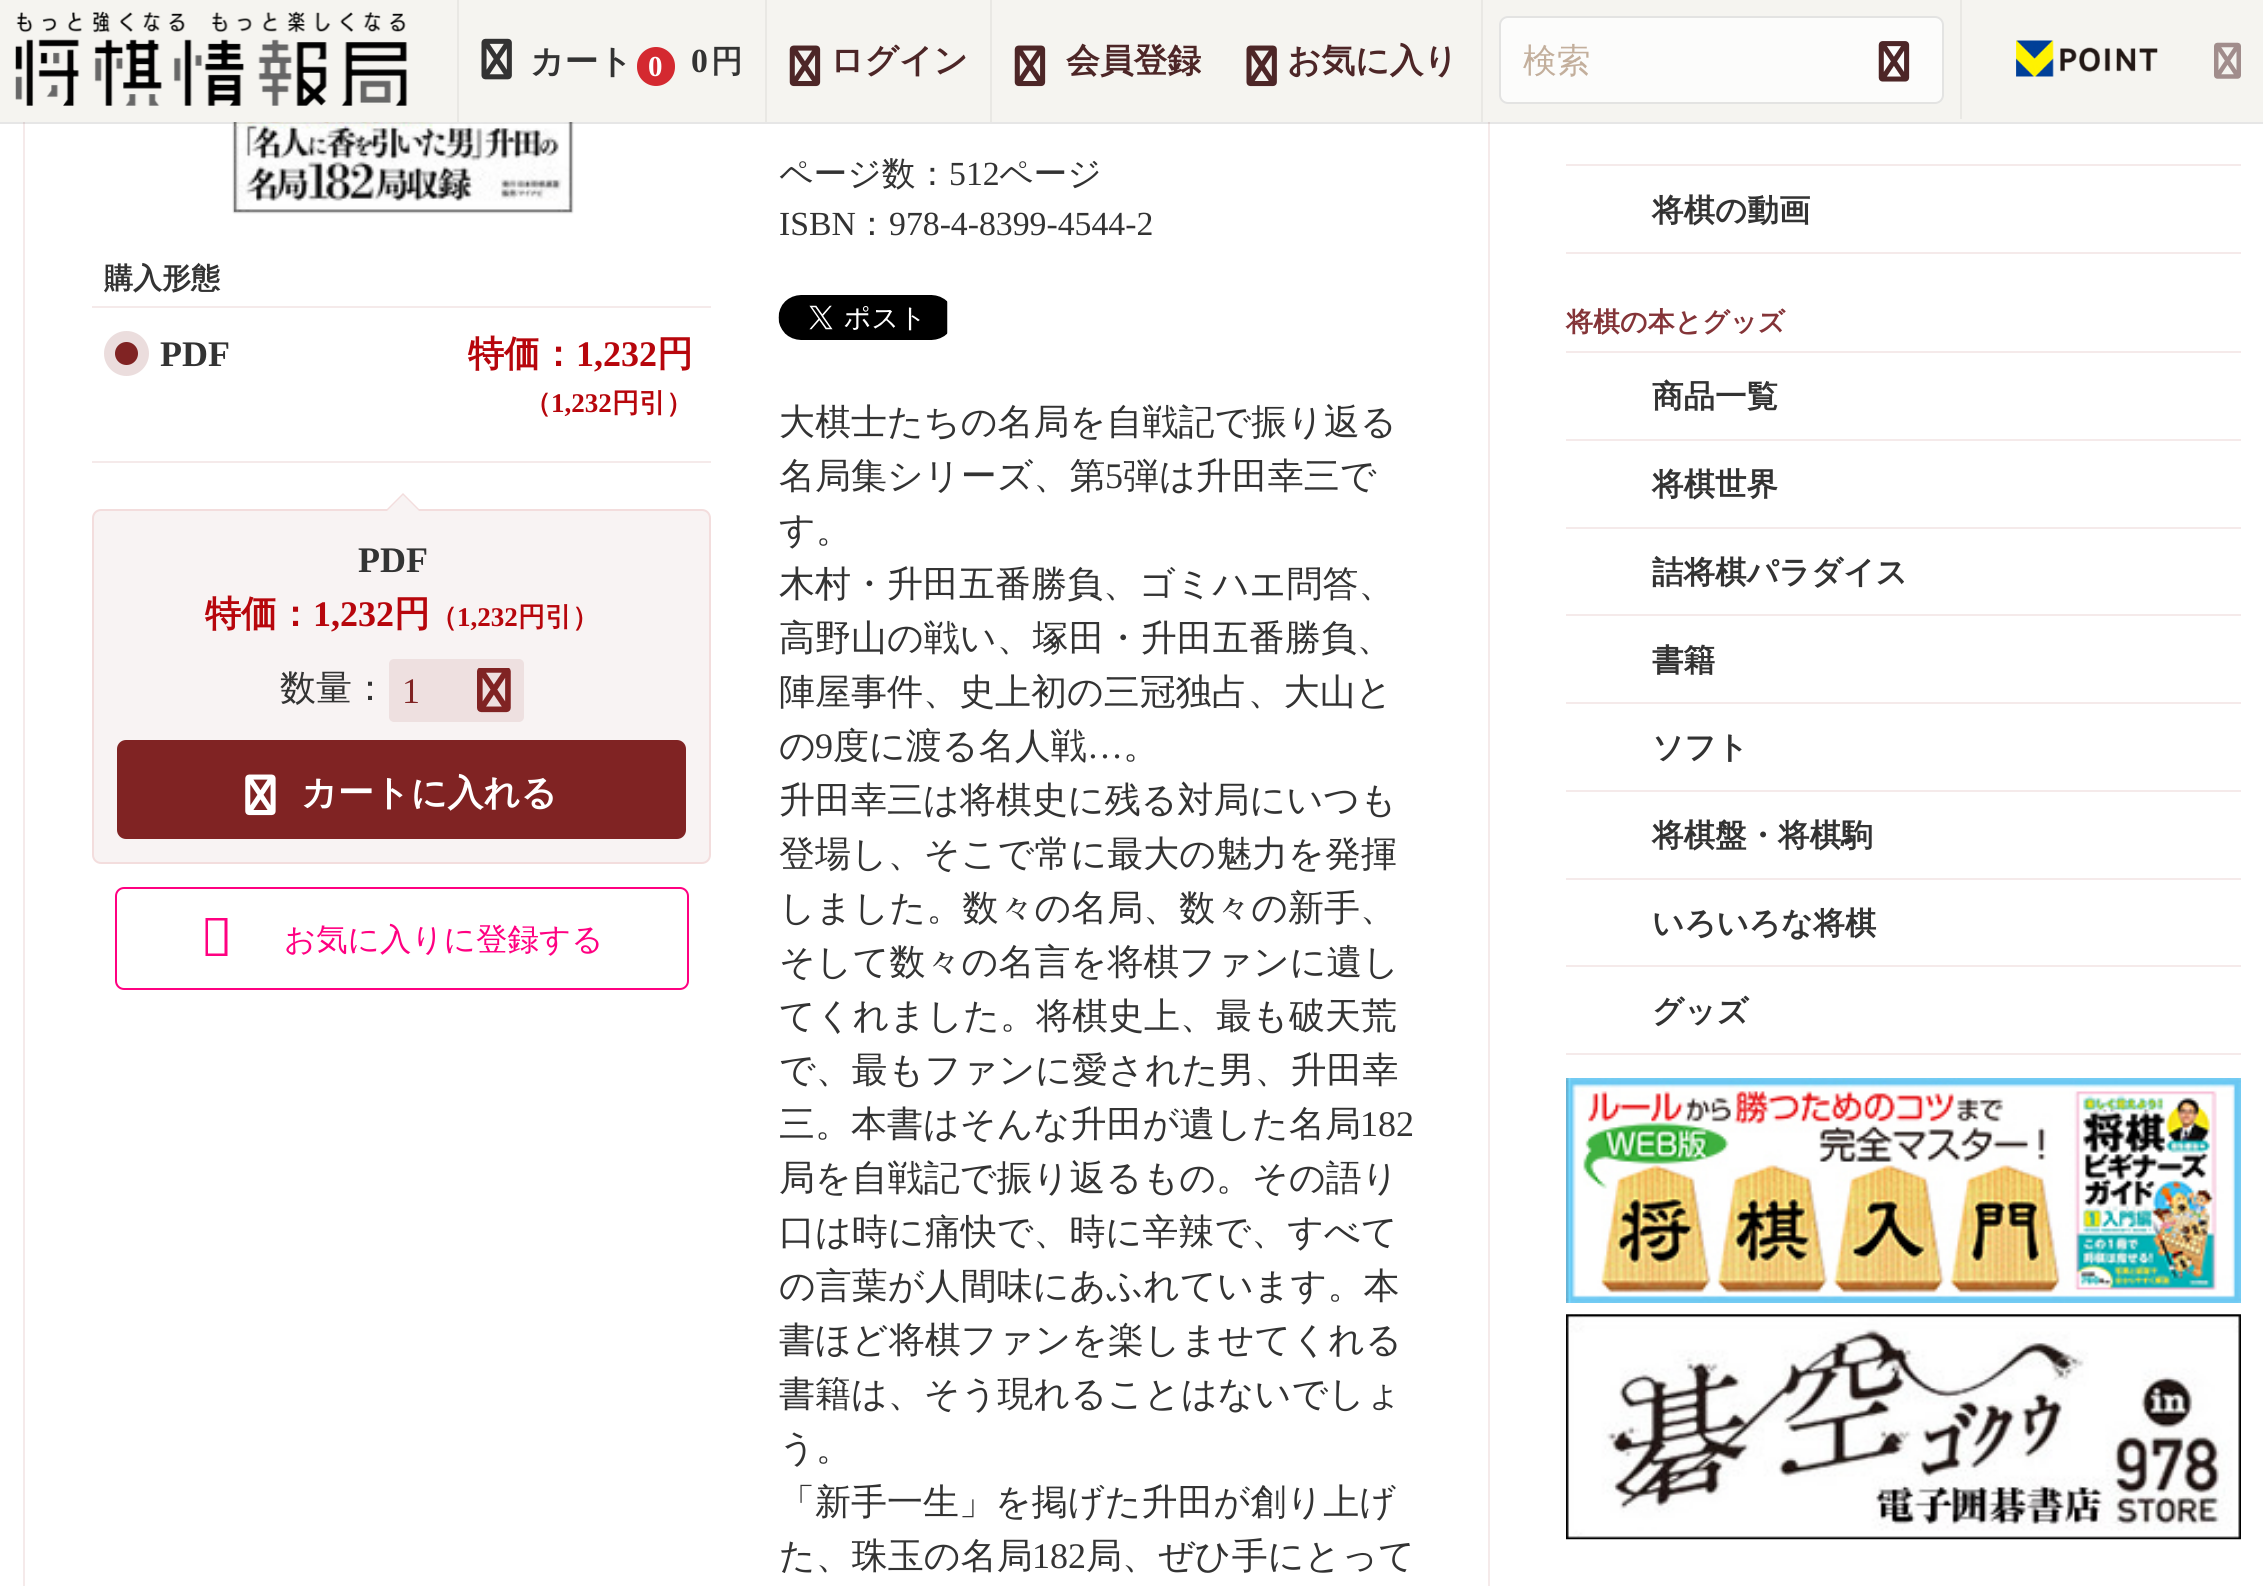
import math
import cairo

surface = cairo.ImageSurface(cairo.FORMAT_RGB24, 2263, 1586)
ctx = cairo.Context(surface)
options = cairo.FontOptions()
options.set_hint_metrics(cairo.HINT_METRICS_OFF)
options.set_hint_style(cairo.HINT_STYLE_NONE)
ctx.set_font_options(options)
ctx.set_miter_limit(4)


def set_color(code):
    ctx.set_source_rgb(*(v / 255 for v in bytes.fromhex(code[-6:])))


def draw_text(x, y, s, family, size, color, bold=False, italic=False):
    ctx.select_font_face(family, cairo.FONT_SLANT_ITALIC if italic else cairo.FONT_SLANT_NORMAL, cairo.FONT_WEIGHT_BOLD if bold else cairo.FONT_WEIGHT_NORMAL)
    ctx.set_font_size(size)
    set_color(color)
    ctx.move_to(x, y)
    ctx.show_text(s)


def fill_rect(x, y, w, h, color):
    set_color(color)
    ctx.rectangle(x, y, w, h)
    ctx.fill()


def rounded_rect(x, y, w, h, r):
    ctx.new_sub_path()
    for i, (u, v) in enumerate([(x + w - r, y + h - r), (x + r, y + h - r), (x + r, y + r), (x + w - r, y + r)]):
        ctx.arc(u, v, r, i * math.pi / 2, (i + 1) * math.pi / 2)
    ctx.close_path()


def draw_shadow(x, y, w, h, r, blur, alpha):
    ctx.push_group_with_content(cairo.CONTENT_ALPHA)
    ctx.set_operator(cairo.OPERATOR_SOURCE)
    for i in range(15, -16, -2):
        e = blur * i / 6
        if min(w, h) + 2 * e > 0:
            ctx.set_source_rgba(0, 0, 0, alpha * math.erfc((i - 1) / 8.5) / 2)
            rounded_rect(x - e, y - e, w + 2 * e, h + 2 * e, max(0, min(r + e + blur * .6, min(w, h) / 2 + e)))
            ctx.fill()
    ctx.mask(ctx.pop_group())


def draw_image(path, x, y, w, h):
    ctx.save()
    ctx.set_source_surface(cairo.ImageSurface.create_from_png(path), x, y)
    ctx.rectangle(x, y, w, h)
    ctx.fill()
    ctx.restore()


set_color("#ffffff")
ctx.paint()
ctx.rectangle(24, -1, 1465, 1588)
set_color("#f5eaea")
ctx.stroke()
set_color("#000000")
draw_shadow(234, -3, 338, 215, 0, 1, 0.5)
fill_rect(0, 0, 2263, 122, "#f5f4f0")
draw_image("assets/img8.png", 234, 122, 338, 90)
ctx.rectangle(-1, -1, 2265, 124)
ctx.set_source_rgba(0, 0, 0, 0.1)
ctx.stroke()
draw_image("assets/img1.png", 15, 11, 393, 95)
fill_rect(765, 0, 2, 122, "#e9e8e4")
fill_rect(457, 0, 2, 122, "#e9e8e4")
draw_image("assets/img2.png", 481, 38, 31, 42)
draw_text(530, 73, "カート", "WenQuanYi Zen Hei", 33.75, "#333333", bold=True)
set_color("#d42930")
rounded_rect(637, 47, 38, 39, 19)
ctx.fill()
draw_text(648, 76, "0", "Liberation Serif", 29, "#ffffff", bold=True)
draw_text(691, 72, "0", "Liberation Serif", 33.75, "#333333", bold=True)
draw_text(711, 72, "円", "WenQuanYi Zen Hei", 31.5, "#333333", bold=True)
fill_rect(1481, 0, 2, 122, "#e9e8e4")
fill_rect(990, 0, 2, 122, "#e9e8e4")
draw_image("assets/img3.png", 789, 45, 32, 42)
draw_text(830, 72, "ログイン", "WenQuanYi Zen Hei", 33.75, "#4d2627", bold=True)
draw_image("assets/img3.png", 1014, 45, 32, 42)
draw_text(1066, 72, "会員登録", "WenQuanYi Zen Hei", 33.75, "#4d2627", bold=True)
draw_image("assets/img4.png", 1246, 45, 31, 42)
draw_text(1287, 72, "お気に入り", "WenQuanYi Zen Hei", 33.75, "#4d2627", bold=True)
fill_rect(1960, 0, 2, 119, "#e9e8e4")
set_color("#fcfcfb")
rounded_rect(1499, 16, 445, 88, 9)
ctx.fill()
rounded_rect(1500, 17, 443, 86, 8)
ctx.set_source_rgba(0, 0, 0, 0.1)
ctx.stroke()
draw_text(1523, 72, "検索", "WenQuanYi Zen Hei Medium", 33.75, "#c3af9c")
draw_image("assets/img5.png", 1878, 41, 32, 41)
draw_image("assets/img6.png", 2016, 40, 142, 37)
draw_image("assets/img7.png", 2214, 42, 27, 37)
draw_text(104, 288, "購入形態", "WenQuanYi Zen Hei", 29, "#333333", bold=True)
fill_rect(92, 306, 619, 2, "#f5eaea")
fill_rect(92, 461, 619, 2, "#f5eaea")
set_color("#802323")
ctx.new_path()
ctx.arc(126.5, 353.5, 17, 0, 2 * math.pi)
ctx.fill_preserve()
set_color("#ebdddd")
ctx.set_line_width(11)
ctx.stroke()
draw_text(160, 366, "PDF", "Liberation Serif", 36, "#333333", bold=True)
draw_text(468, 366, "特価：", "WenQuanYi Zen Hei", 36, "#b7060c", bold=True)
draw_text(576, 366, "1,232", "Liberation Serif", 36, "#b7060c", bold=True)
draw_text(657, 366, "円", "WenQuanYi Zen Hei", 36, "#b7060c", bold=True)
draw_text(524, 412, "（", "WenQuanYi Zen Hei", 27, "#b7060c", bold=True)
draw_text(551, 412, "1,232", "Liberation Serif", 27, "#b7060c", bold=True)
draw_text(612, 412, "円引）", "WenQuanYi Zen Hei", 27, "#b7060c", bold=True)
set_color("#f8f3f3")
rounded_rect(93, 510, 617, 353, 8)
ctx.fill_preserve()
set_color("#f3dddd")
ctx.set_line_width(2)
ctx.stroke()
ctx.new_path()
ctx.move_to(421, 511)
ctx.line_to(385, 511)
ctx.line_to(403, 493)
ctx.close_path()
ctx.fill()
set_color("#f8f3f3")
ctx.new_path()
ctx.move_to(421, 513)
ctx.line_to(385, 513)
ctx.line_to(403, 495)
ctx.close_path()
ctx.fill()
draw_text(358, 572, "PDF", "Liberation Serif", 36, "#333333", bold=True)
draw_text(205, 626, "特価：", "WenQuanYi Zen Hei", 36, "#b7060c", bold=True)
draw_text(313, 626, "1,232", "Liberation Serif", 36, "#b7060c", bold=True)
draw_text(394, 626, "円", "WenQuanYi Zen Hei", 36, "#b7060c", bold=True)
draw_text(430, 626, "（", "WenQuanYi Zen Hei", 27, "#b7060c", bold=True)
draw_text(457, 626, "1,232", "Liberation Serif", 27, "#b7060c", bold=True)
draw_text(518, 626, "円引）", "WenQuanYi Zen Hei", 27, "#b7060c", bold=True)
draw_text(280, 700, "数量：", "WenQuanYi Zen Hei Medium", 36, "#333333")
set_color("#eee0e0")
rounded_rect(389, 659, 135, 63, 5)
ctx.fill()
draw_text(402, 703, "1", "Liberation Serif", 36, "#802323")
draw_image("assets/img9.png", 477, 668, 34, 45)
rounded_rect(117, 740, 569, 99, 9)
ctx.fill()
draw_image("assets/img10.png", 245, 774, 31, 42)
draw_text(301, 805, "カートに入れる", "WenQuanYi Zen Hei", 36, "#ffffff", bold=True)
rounded_rect(116, 888, 572, 101, 8)
set_color("#ff0081")
ctx.stroke()
ctx.new_path()
ctx.move_to(205.5, 956)
ctx.line_to(205.5, 918)
ctx.line_to(227.5, 918)
ctx.line_to(227.5, 956)
ctx.close_path()
ctx.move_to(208, 953.5)
ctx.line_to(224.5, 953.5)
ctx.line_to(224.5, 920.5)
ctx.line_to(208, 920.5)
ctx.close_path()
ctx.fill()
draw_text(284, 950, "お気に入りに登録する", "WenQuanYi Zen Hei Medium", 31.5, "#ff0081")
draw_text(779, 185, "ページ数：", "WenQuanYi Zen Hei Medium", 33.75, "#333333")
draw_text(949, 185, "512", "Liberation Serif", 33.75, "#333333")
draw_text(999, 185, "ページ", "WenQuanYi Zen Hei Medium", 33.75, "#333333")
draw_text(779, 235, "ISBN", "Liberation Serif", 33.75, "#333333")
draw_text(855, 235, "：", "WenQuanYi Zen Hei Medium", 33.75, "#333333")
draw_text(889, 235, "978-4-8399-4544-2", "Liberation Serif", 33.75, "#333333")
draw_image("assets/img11.png", 778, 295, 170, 45)
draw_text(779, 434, "大棋士たちの名局を自戦記で振り返る", "WenQuanYi Zen Hei Medium", 36, "#333333")
draw_text(779, 488, "名局集シリーズ、第", "WenQuanYi Zen Hei Medium", 36, "#333333")
draw_text(1105, 488, "5", "Liberation Serif", 36, "#333333")
draw_text(1123, 488, "弾は升田幸三で", "WenQuanYi Zen Hei Medium", 36, "#333333")
draw_text(779, 542, "す。", "WenQuanYi Zen Hei Medium", 36, "#333333")
draw_text(779, 596, "木村・升田五番勝負、ゴミハエ問答、", "WenQuanYi Zen Hei Medium", 36, "#333333")
draw_text(779, 650, "高野山の戦い、塚田・升田五番勝負、", "WenQuanYi Zen Hei Medium", 36, "#333333")
draw_text(779, 704, "陣屋事件、史上初の三冠独占、大山と", "WenQuanYi Zen Hei Medium", 36, "#333333")
draw_text(779, 758, "の", "WenQuanYi Zen Hei Medium", 36, "#333333")
draw_text(815, 758, "9", "Liberation Serif", 36, "#333333")
draw_text(833, 758, "度に渡る名人戦", "WenQuanYi Zen Hei Medium", 36, "#333333")
draw_text(1087, 758, "…", "Liberation Serif", 36, "#333333")
draw_text(1123, 758, "。", "WenQuanYi Zen Hei Medium", 36, "#333333")
draw_text(779, 812, "升田幸三は将棋史に残る対局にいつも", "WenQuanYi Zen Hei Medium", 36, "#333333")
draw_text(779, 866, "登場し、そこで常に最大の魅力を発揮", "WenQuanYi Zen Hei Medium", 36, "#333333")
draw_text(779, 920, "しました。数々の名局、数々の新手、", "WenQuanYi Zen Hei Medium", 36, "#333333")
draw_text(779, 974, "そして数々の名言を将棋ファンに遺し", "WenQuanYi Zen Hei Medium", 36, "#333333")
draw_text(779, 1028, "てくれました。将棋史上、最も破天荒", "WenQuanYi Zen Hei Medium", 36, "#333333")
draw_text(779, 1082, "で、最もファンに愛された男、升田幸", "WenQuanYi Zen Hei Medium", 36, "#333333")
draw_text(779, 1136, "三。本書はそんな升田が遺した名局", "WenQuanYi Zen Hei Medium", 36, "#333333")
draw_text(1360, 1136, "182", "Liberation Serif", 36, "#333333")
draw_text(779, 1190, "局を自戦記で振り返るもの。その語り", "WenQuanYi Zen Hei Medium", 36, "#333333")
draw_text(779, 1244, "口は時に痛快で、時に辛辣で、すべて", "WenQuanYi Zen Hei Medium", 36, "#333333")
draw_text(779, 1298, "の言葉が人間味にあふれています。本", "WenQuanYi Zen Hei Medium", 36, "#333333")
draw_text(779, 1352, "書ほど将棋ファンを楽しませてくれる", "WenQuanYi Zen Hei Medium", 36, "#333333")
draw_text(779, 1406, "書籍は、そう現れることはないでしょ", "WenQuanYi Zen Hei Medium", 36, "#333333")
draw_text(779, 1460, "う。", "WenQuanYi Zen Hei Medium", 36, "#333333")
draw_text(779, 1514, "「新手一生」を掲げた升田が創り上げ", "WenQuanYi Zen Hei Medium", 36, "#333333")
draw_text(779, 1568, "た、珠玉の名局", "WenQuanYi Zen Hei Medium", 36, "#333333")
draw_text(1032, 1568, "182", "Liberation Serif", 36, "#333333")
draw_text(1086, 1568, "局、ぜひ手にとって", "WenQuanYi Zen Hei Medium", 36, "#333333")
fill_rect(1566, 252, 675, 2, "#f5eaea")
fill_rect(1566, 164, 675, 2, "#f5eaea")
draw_text(1652, 221, "将棋の動画", "WenQuanYi Zen Hei", 31.5, "#333333", bold=True)
fill_rect(1566, 1053, 675, 2, "#f5eaea")
draw_text(1566, 331, "将棋の本とグッズ", "WenQuanYi Zen Hei", 27, "#843438", bold=True)
fill_rect(1566, 351, 675, 2, "#f5eaea")
draw_text(1652, 407, "商品一覧", "WenQuanYi Zen Hei", 31.5, "#333333", bold=True)
fill_rect(1566, 439, 675, 2, "#f5eaea")
draw_text(1652, 495, "将棋世界", "WenQuanYi Zen Hei", 31.5, "#333333", bold=True)
fill_rect(1566, 527, 675, 2, "#f5eaea")
draw_text(1652, 583, "詰将棋パラダイス", "WenQuanYi Zen Hei", 31.5, "#333333", bold=True)
fill_rect(1566, 614, 675, 2, "#f5eaea")
draw_text(1652, 671, "書籍", "WenQuanYi Zen Hei", 31.5, "#333333", bold=True)
fill_rect(1566, 702, 675, 2, "#f5eaea")
draw_text(1652, 758, "ソフト", "WenQuanYi Zen Hei", 31.5, "#333333", bold=True)
fill_rect(1566, 790, 675, 2, "#f5eaea")
draw_text(1652, 846, "将棋盤・将棋駒", "WenQuanYi Zen Hei", 31.5, "#333333", bold=True)
fill_rect(1566, 878, 675, 2, "#f5eaea")
draw_text(1652, 934, "いろいろな将棋", "WenQuanYi Zen Hei", 31.5, "#333333", bold=True)
fill_rect(1566, 965, 675, 2, "#f5eaea")
draw_text(1652, 1022, "グッズ", "WenQuanYi Zen Hei", 31.5, "#333333", bold=True)
draw_image("assets/img12.png", 1566, 1078, 675, 225)
draw_image("assets/img13.png", 1566, 1314, 675, 226)
surface.write_to_png("output.png")
